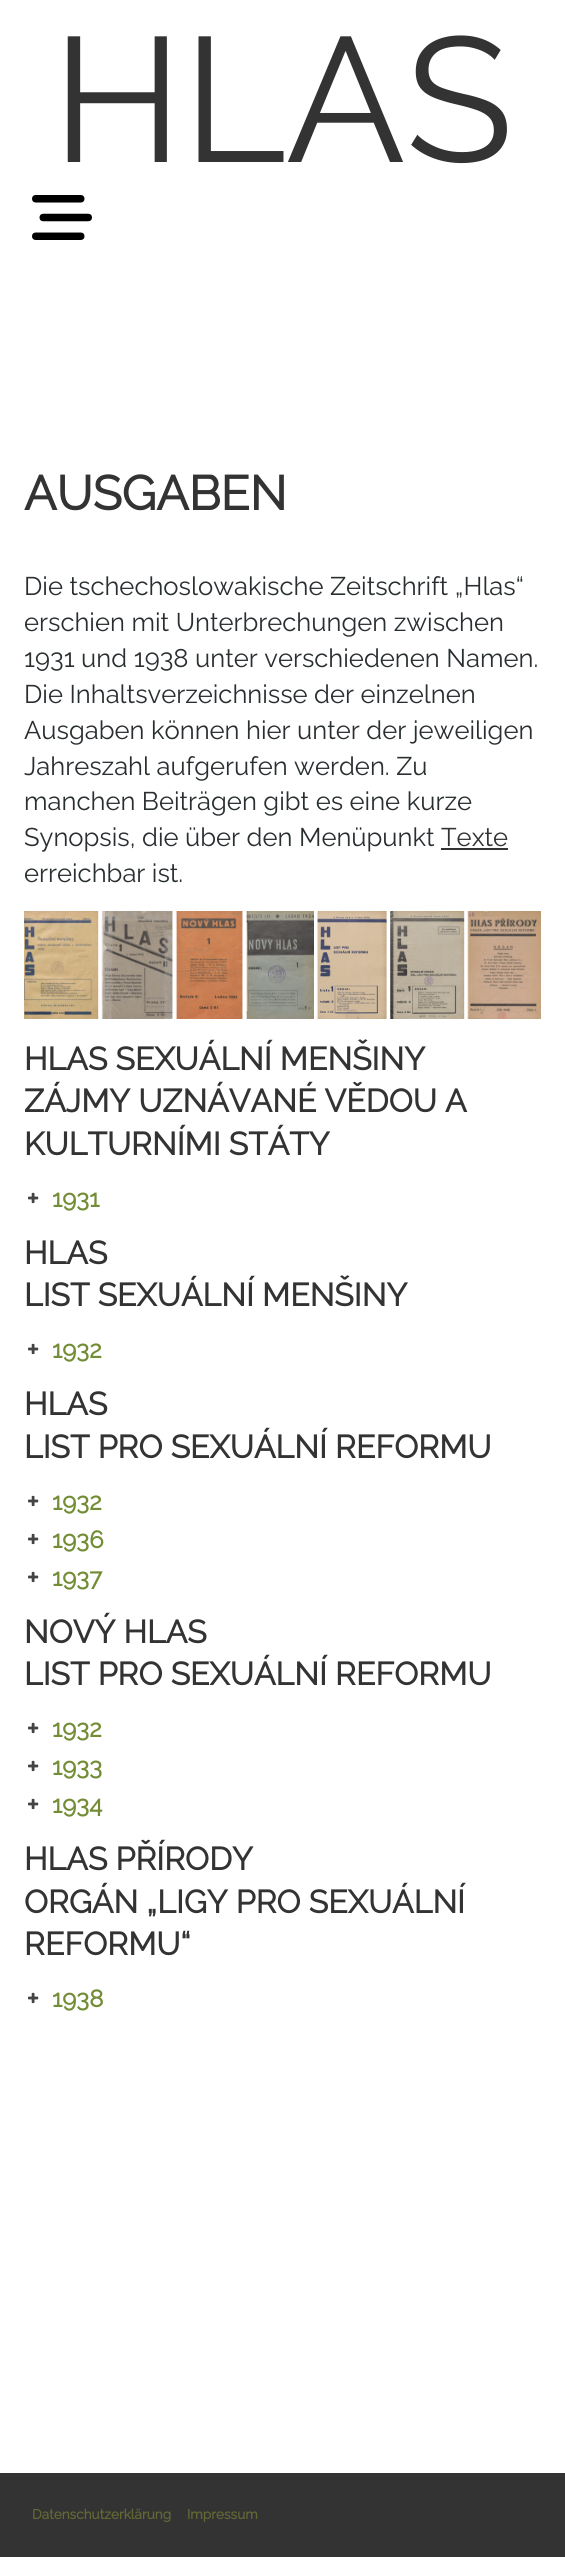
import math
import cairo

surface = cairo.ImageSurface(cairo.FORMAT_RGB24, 565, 2557)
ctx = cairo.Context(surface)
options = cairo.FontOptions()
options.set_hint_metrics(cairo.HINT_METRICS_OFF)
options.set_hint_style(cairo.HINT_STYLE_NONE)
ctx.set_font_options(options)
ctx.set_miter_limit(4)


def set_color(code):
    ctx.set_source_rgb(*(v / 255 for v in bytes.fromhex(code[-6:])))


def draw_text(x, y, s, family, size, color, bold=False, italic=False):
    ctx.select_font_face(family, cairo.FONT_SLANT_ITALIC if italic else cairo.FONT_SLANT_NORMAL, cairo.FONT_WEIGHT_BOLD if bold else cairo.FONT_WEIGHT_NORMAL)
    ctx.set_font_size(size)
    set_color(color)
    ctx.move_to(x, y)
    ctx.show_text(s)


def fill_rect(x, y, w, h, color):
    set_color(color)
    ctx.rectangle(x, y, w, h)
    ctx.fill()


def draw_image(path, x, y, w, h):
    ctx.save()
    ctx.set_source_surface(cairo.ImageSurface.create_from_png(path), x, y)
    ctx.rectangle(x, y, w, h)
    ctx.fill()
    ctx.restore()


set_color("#ffffff")
ctx.paint()
draw_text(52, 162, "HLAS", "Raleway Thin", 177, "#333333")
draw_image("assets/img1.png", 32, 195, 60, 45)
draw_text(24, 510, "AUSGABEN", "Raleway", 48, "#333333", bold=True)
draw_text(24, 595, "Die tschechoslowakische Zeitschrift „Hlas“", "Raleway Thin", 25.6, "#292e30")
draw_text(24, 631, "erschien mit Unterbrechungen zwischen", "Raleway Thin", 25.6, "#292e30")
draw_text(24, 667, "1931 und 1938 unter verschiedenen Namen.", "Raleway Thin", 25.6, "#292e30")
draw_text(24, 703, "Die Inhaltsverzeichnisse der einzelnen", "Raleway Thin", 25.6, "#292e30")
draw_text(24, 739, "Ausgaben können hier unter der jeweiligen", "Raleway Thin", 25.6, "#292e30")
draw_text(24, 775, "Jahreszahl aufgerufen werden. Zu", "Raleway Thin", 25.6, "#292e30")
draw_text(24, 810, "manchen Beiträgen gibt es eine kurze", "Raleway Thin", 25.6, "#292e30")
draw_text(24, 846, "Synopsis, die über den Menüpunkt", "Raleway Thin", 25.6, "#292e30")
draw_text(441, 846, "Texte", "Raleway Thin", 25.6, "#333333")
fill_rect(441, 848, 67, 2, "#333333")
draw_text(24, 882, "erreichbar ist.", "Raleway Thin", 25.6, "#292e30")
draw_image("assets/img2.png", 24, 911, 517, 108)
draw_text(24, 1070, "HLAS SEXUÁLNÍ MENŠINY", "Raleway", 32, "#333333", bold=True)
draw_text(24, 1112, "ZÁJMY UZNÁVANÉ VĚDOU A", "Raleway", 32, "#333333", bold=True)
draw_text(24, 1155, "KULTURNÍMI STÁTY", "Raleway", 32, "#333333", bold=True)
draw_image("assets/img3.png", 28, 1192, 11, 12)
draw_text(52, 1207, "1931", "Raleway", 24, "#738d36", bold=True)
draw_text(24, 1264, "HLAS", "Raleway", 32, "#333333", bold=True)
draw_text(24, 1306, "LIST SEXUÁLNÍ MENŠINY", "Raleway", 32, "#333333", bold=True)
draw_image("assets/img3.png", 28, 1343, 11, 12)
draw_text(52, 1358, "1932", "Raleway", 24, "#738d36", bold=True)
draw_text(24, 1415, "HLAS", "Raleway", 32, "#333333", bold=True)
draw_text(24, 1458, "LIST PRO SEXUÁLNÍ REFORMU", "Raleway", 32, "#333333", bold=True)
draw_image("assets/img3.png", 28, 1495, 11, 12)
draw_text(52, 1510, "1932", "Raleway", 24, "#738d36", bold=True)
draw_image("assets/img3.png", 28, 1533, 11, 12)
draw_text(52, 1548, "1936", "Raleway", 24, "#738d36", bold=True)
draw_image("assets/img3.png", 28, 1571, 11, 12)
draw_text(52, 1586, "1937", "Raleway", 24, "#738d36", bold=True)
draw_text(24, 1643, "NOVÝ HLAS", "Raleway", 32, "#333333", bold=True)
draw_text(24, 1685, "LIST PRO SEXUÁLNÍ REFORMU", "Raleway", 32, "#333333", bold=True)
draw_image("assets/img3.png", 28, 1722, 11, 12)
draw_text(52, 1737, "1932", "Raleway", 24, "#738d36", bold=True)
draw_image("assets/img3.png", 28, 1760, 11, 12)
draw_text(52, 1775, "1933", "Raleway", 24, "#738d36", bold=True)
draw_image("assets/img3.png", 28, 1798, 11, 12)
draw_text(52, 1813, "1934", "Raleway", 24, "#738d36", bold=True)
draw_text(24, 1870, "HLAS PŘÍRODY", "Raleway", 32, "#333333", bold=True)
draw_text(24, 1913, "ORGÁN „LIGY PRO SEXUÁLNÍ", "Raleway", 32, "#333333", bold=True)
draw_text(24, 1955, "REFORMU“", "Raleway", 32, "#333333", bold=True)
draw_image("assets/img3.png", 28, 1992, 11, 12)
draw_text(52, 2007, "1938", "Raleway", 24, "#738d36", bold=True)
fill_rect(0, 2473, 565, 84, "#333333")
draw_text(32, 2519, "Datenschutzerklärung", "Raleway", 13.6, "#636834", bold=True)
draw_text(187, 2519, "Impressum", "Raleway", 13.6, "#636834", bold=True)
surface.write_to_png("output.png")
